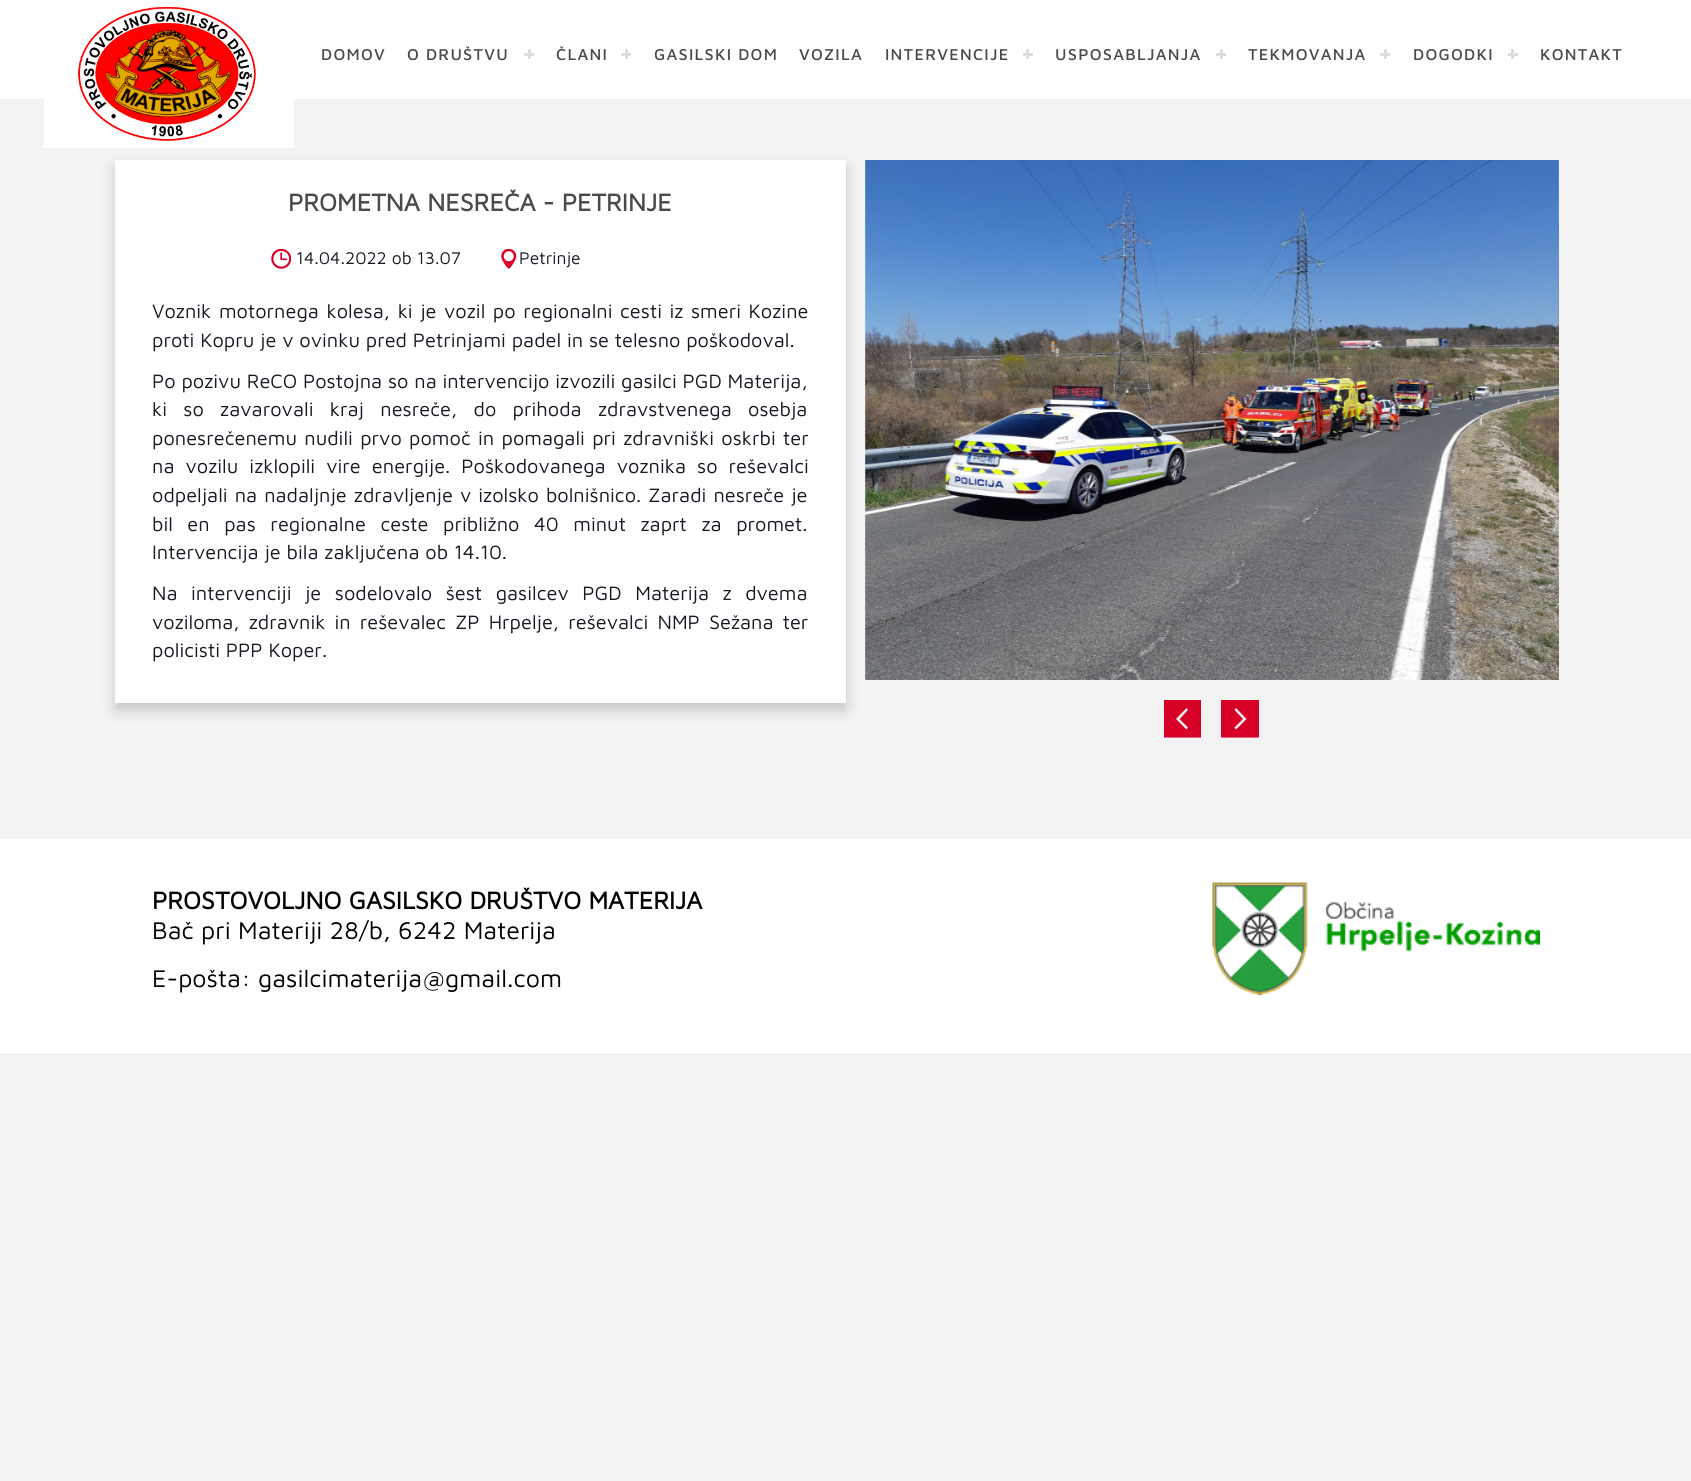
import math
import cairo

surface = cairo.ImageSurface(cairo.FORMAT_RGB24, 1691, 1481)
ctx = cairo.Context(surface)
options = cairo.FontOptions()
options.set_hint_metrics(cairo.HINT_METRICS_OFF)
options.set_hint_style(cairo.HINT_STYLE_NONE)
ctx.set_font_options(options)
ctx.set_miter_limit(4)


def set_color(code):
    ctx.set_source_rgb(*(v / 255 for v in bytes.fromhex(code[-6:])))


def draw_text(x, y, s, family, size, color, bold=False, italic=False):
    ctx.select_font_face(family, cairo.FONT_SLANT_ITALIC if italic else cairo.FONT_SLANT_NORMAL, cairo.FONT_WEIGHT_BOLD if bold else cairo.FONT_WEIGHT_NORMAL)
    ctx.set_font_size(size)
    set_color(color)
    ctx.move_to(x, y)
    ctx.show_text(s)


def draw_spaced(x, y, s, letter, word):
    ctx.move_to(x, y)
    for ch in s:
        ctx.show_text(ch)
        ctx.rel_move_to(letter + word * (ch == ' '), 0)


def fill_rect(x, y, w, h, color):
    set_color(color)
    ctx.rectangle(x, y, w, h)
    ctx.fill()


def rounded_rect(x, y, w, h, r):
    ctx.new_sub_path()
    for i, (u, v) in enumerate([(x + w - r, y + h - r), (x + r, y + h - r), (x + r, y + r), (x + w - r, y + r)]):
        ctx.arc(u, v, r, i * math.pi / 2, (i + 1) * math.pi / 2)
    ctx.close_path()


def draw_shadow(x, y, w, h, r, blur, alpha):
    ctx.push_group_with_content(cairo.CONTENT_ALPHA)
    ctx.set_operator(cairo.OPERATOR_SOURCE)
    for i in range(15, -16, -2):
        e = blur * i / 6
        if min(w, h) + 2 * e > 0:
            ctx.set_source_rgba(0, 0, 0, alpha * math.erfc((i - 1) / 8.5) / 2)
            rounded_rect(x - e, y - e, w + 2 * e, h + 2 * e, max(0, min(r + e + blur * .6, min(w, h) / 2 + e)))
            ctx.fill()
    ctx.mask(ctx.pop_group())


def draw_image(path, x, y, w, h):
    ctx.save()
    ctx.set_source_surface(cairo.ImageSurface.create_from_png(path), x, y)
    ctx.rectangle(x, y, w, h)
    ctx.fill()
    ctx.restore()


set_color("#f3f3f3")
ctx.paint()
fill_rect(0, 0, 1691, 99, "#ffffff")
set_color("#000000")
draw_shadow(115, 168, 731, 542, 0, 7, 0.19)
fill_rect(44, 99, 250, 49, "#ffffff")
draw_image("assets/img1.png", 78, 6, 178, 135)
ctx.select_font_face("Maven Pro Medium")
ctx.set_font_size(16.25)
set_color("#4a4a4a")
draw_spaced(321, 60, "DOMOV", 1.25, 0)
draw_spaced(407, 60, "O DRUŠTVU", 1.25, 0)
fill_rect(528, 49, 3, 10, "#dddddd")
fill_rect(524, 53, 10, 3, "#dddddd")
set_color("#4a4a4a")
draw_spaced(556, 60, "ČLANI", 1.25, 0)
fill_rect(625, 49, 3, 10, "#dddddd")
fill_rect(621, 53, 10, 3, "#dddddd")
set_color("#4a4a4a")
draw_spaced(654, 60, "GASILSKI DOM", 1.25, 0)
draw_spaced(799, 60, "VOZILA", 1.25, 0)
draw_spaced(885, 60, "INTERVENCIJE", 1.25, 0)
fill_rect(1026, 49, 3, 10, "#dddddd")
fill_rect(1023, 53, 10, 3, "#dddddd")
set_color("#4a4a4a")
draw_spaced(1055, 60, "USPOSABLJANJA", 1.25, 0)
fill_rect(1220, 49, 3, 10, "#dddddd")
fill_rect(1216, 53, 10, 3, "#dddddd")
set_color("#4a4a4a")
draw_spaced(1248, 60, "TEKMOVANJA", 1.25, 0)
fill_rect(1384, 49, 3, 10, "#dddddd")
fill_rect(1380, 53, 10, 3, "#dddddd")
set_color("#4a4a4a")
draw_spaced(1413, 60, "DOGODKI", 1.25, 0)
fill_rect(1511, 49, 3, 10, "#dddddd")
fill_rect(1508, 53, 10, 3, "#dddddd")
set_color("#4a4a4a")
draw_spaced(1540, 60, "KONTAKT", 1.25, 0)
fill_rect(115, 160, 731, 543, "#ffffff")
draw_text(288, 211, "PROMETNA NESREČA - PETRINJE", "Maven Pro", 25, "#4a4a4a", bold=True)
draw_image("assets/img2.png", 271, 249, 20, 20)
draw_text(296, 264, "14.04.2022 ob 13.07", "Maven Pro", 17.5, "#161921")
draw_image("assets/img3.png", 501, 249, 16, 20)
draw_text(519, 264, "Petrinje", "Maven Pro", 17.5, "#161921")
ctx.set_font_size(20)
draw_spaced(152, 318, "Voznik motornega kolesa, ki je vozil po regionalni cesti iz smeri Kozine", 0, 1.75)
draw_text(152, 347, "proti Kopru je v ovinku pred Petrinjami padel in se telesno poškodoval.", "Maven Pro", 20, "#161921")
draw_text(152, 388, "Po pozivu ReCO Postojna so na intervencijo izvozili gasilci PGD Materija,", "Maven Pro", 20, "#161921")
draw_spaced(152, 416, "ki so zavarovali kraj nesreče, do prihoda zdravstvenega osebja", 0, 10.5)
draw_spaced(152, 445, "ponesrečenemu nudili prvo pomoč in pomagali pri zdravniški oskrbi ter", 0, 1.5)
draw_spaced(152, 473, "na vozilu izklopili vire energije. Poškodovanega voznika so reševalci", 0, 5.25)
draw_spaced(152, 502, "odpeljali na nadaljnje zdravljenje v izolsko bolnišnico. Zaradi nesreče je", 0, 1.25)
draw_spaced(152, 531, "bil en pas regionalne ceste približno 40 minut zaprt za promet.", 0, 8.75)
draw_text(152, 559, "Intervencija je bila zaključena ob 14.10.", "Maven Pro", 20, "#161921")
draw_spaced(152, 600, "Na intervenciji je sodelovalo šest gasilcev PGD Materija z dvema", 0, 7.75)
draw_spaced(152, 629, "voziloma, zdravnik in reševalec ZP Hrpelje, reševalci NMP Sežana ter", 0, 3.25)
draw_text(152, 657, "policisti PPP Koper.", "Maven Pro", 20, "#161921")
draw_image("assets/img4.png", 865, 160, 694, 520)
draw_image("assets/img5.png", 1558, 160, 1, 520)
set_color("#d80027")
ctx.new_path()
ctx.move_to(1164, 700)
ctx.line_to(1164, 737.5)
ctx.line_to(1201, 737.5)
ctx.line_to(1201, 700)
ctx.close_path()
ctx.move_to(1188, 727.5)
ctx.line_to(1186.5, 729.5)
ctx.line_to(1176, 719)
ctx.line_to(1186.5, 708)
ctx.line_to(1188, 710)
ctx.line_to(1179.5, 719)
ctx.close_path()
ctx.fill()
ctx.new_path()
ctx.move_to(1221, 700)
ctx.line_to(1221, 737.5)
ctx.line_to(1259, 737.5)
ctx.line_to(1259, 700)
ctx.close_path()
ctx.move_to(1236, 729.5)
ctx.line_to(1234.5, 727.5)
ctx.line_to(1243, 719)
ctx.line_to(1234.5, 710)
ctx.line_to(1236, 708)
ctx.line_to(1246.5, 719)
ctx.close_path()
ctx.fill()
fill_rect(0, 839, 1691, 214, "#ffffff")
draw_text(152, 909, "PROSTOVOLJNO GASILSKO DRUŠTVO MATERIJA", "Maven Pro", 25, "#000000", bold=True)
draw_text(152, 939, "Bač pri Materiji 28/b, 6242 Materija", "Maven Pro", 25, "#000000")
draw_text(152, 987, "E-pošta: gasilcimaterija@gmail.com", "Maven Pro", 25, "#000000")
draw_image("assets/img6.png", 1212, 882, 328, 113)
surface.write_to_png("output.png")
